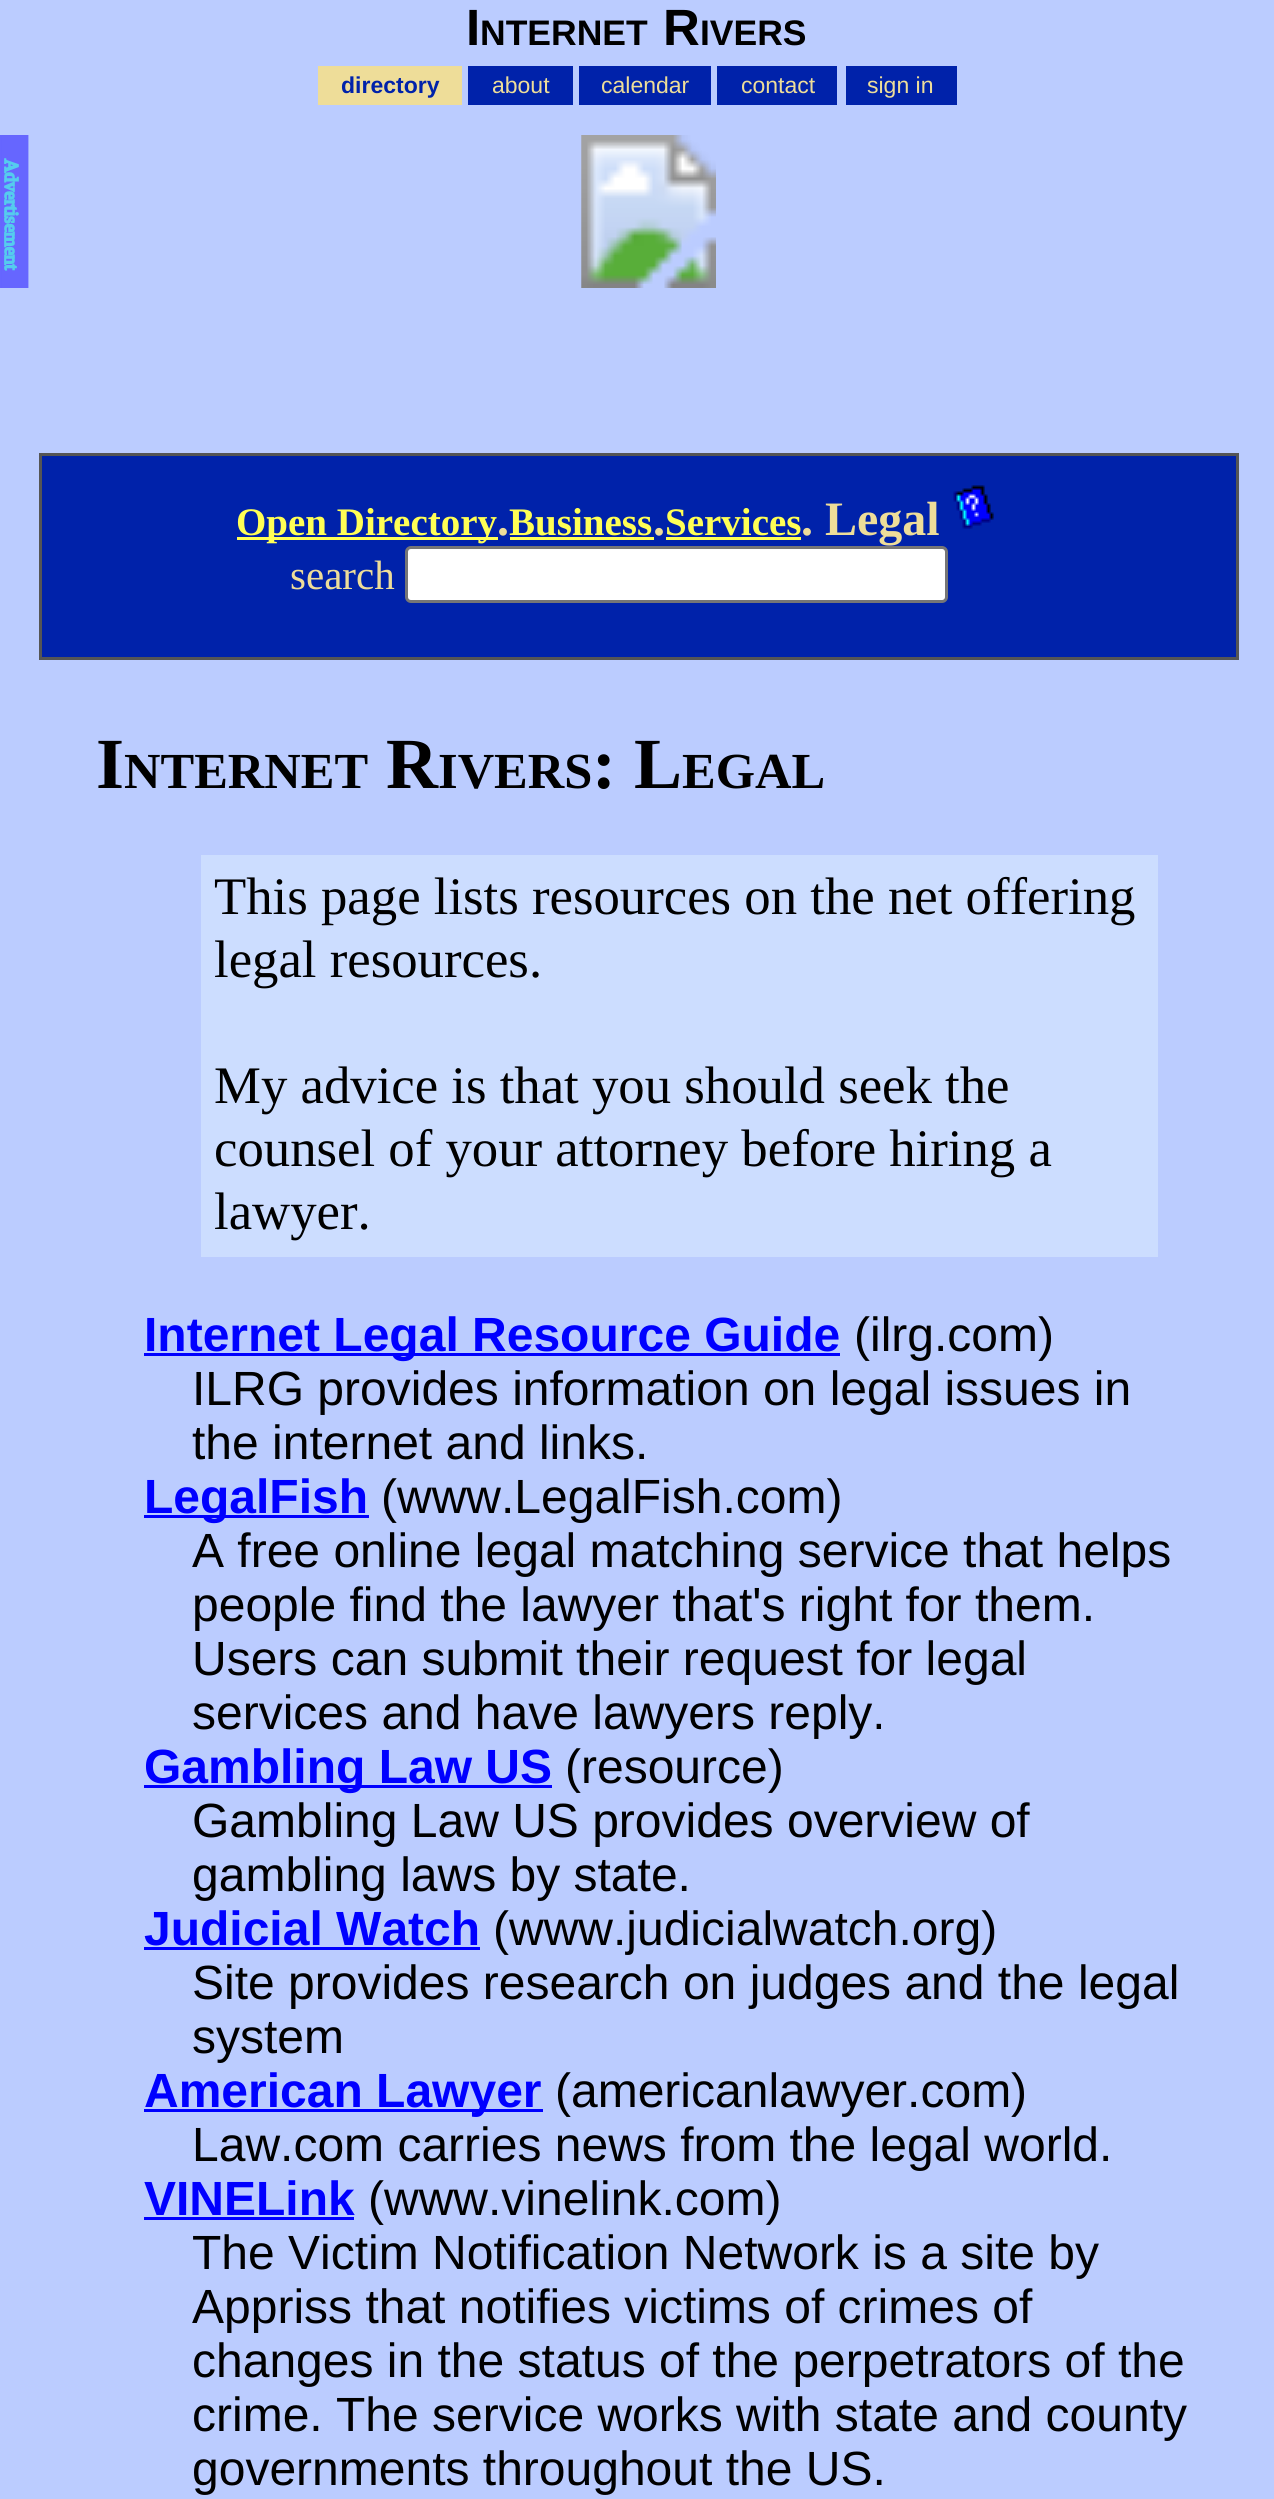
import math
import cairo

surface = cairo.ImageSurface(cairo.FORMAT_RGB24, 1274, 2499)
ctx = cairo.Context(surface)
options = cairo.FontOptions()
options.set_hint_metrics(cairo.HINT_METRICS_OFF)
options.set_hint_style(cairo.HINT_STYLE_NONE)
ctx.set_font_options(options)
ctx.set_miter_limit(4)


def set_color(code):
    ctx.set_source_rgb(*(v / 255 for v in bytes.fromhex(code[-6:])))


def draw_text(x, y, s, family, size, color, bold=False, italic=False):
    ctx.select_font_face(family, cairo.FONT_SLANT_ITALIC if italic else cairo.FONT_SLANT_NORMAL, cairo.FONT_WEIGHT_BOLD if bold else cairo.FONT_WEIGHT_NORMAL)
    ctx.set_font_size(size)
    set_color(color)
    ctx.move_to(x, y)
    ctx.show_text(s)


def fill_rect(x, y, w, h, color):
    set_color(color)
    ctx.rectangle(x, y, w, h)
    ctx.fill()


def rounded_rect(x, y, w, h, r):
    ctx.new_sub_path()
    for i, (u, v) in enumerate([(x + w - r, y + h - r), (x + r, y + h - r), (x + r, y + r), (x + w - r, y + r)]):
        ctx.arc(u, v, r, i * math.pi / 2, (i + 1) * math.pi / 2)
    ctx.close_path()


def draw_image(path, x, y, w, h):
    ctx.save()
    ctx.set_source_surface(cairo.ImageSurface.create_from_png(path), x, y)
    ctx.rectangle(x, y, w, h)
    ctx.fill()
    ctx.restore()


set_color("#bbccff")
ctx.paint()
draw_text(466, 45, "I", "Liberation Sans", 51, "#000000", bold=True)
draw_text(480, 45, "NTERNET", "Liberation Sans", 35.5, "#000000", bold=True)
draw_text(663, 45, "R", "Liberation Sans", 51, "#000000", bold=True)
draw_text(700, 45, "IVERS", "Liberation Sans", 35.5, "#000000", bold=True)
fill_rect(318, 66, 144, 39, "#eedd99")
draw_text(341, 93, "directory", "Liberation Sans", 23, "#0022aa", bold=True)
fill_rect(468, 66, 105, 39, "#0022aa")
draw_text(492, 93, "about", "Liberation Sans", 23, "#eedd99")
fill_rect(579, 66, 132, 39, "#0022aa")
draw_text(601, 93, "calendar", "Liberation Sans", 23, "#eedd99")
fill_rect(717, 66, 120, 39, "#0022aa")
draw_text(741, 93, "contact", "Liberation Sans", 23, "#eedd99")
fill_rect(846, 66, 111, 39, "#0022aa")
draw_text(867, 93, "sign in", "Liberation Sans", 23, "#eedd99")
draw_image("assets/img1.png", 0, 135, 716, 153)
set_color("#0022aa")
ctx.rectangle(40.5, 454.5, 1197, 204)
ctx.fill_preserve()
set_color("#555555")
ctx.set_line_width(3)
ctx.stroke()
fill_rect(237, 537, 261, 3, "#ffff55")
draw_text(236, 535, "Open Directory", "Liberation Serif", 39, "#ffff55", bold=True)
draw_text(497, 535, ".", "Liberation Serif", 48, "#eedd99", bold=True)
draw_text(509, 535, "Business", "Liberation Serif", 39, "#ffff55", bold=True)
fill_rect(510, 537, 144, 3, "#ffff55")
draw_text(653, 535, ".", "Liberation Serif", 48, "#eedd99", bold=True)
draw_text(665, 535, "Services", "Liberation Serif", 39, "#ffff55", bold=True)
fill_rect(666, 537, 135, 3, "#ffff55")
draw_text(801, 535, ". Legal", "Liberation Serif", 48, "#eedd99", bold=True)
draw_image("assets/img2.png", 953, 485, 41, 44)
draw_text(290, 589, "search", "Liberation Serif", 41, "#eedd99")
set_color("#ffffff")
rounded_rect(406.5, 547.5, 540, 54, 4.5)
ctx.fill_preserve()
set_color("#767676")
ctx.stroke()
draw_text(96, 788, "I", "Liberation Serif", 72, "#000000", bold=True)
draw_text(124, 788, "NTERNET", "Liberation Serif", 50.5, "#000000", bold=True)
draw_text(386, 788, "R", "Liberation Serif", 72, "#000000", bold=True)
draw_text(438, 788, "IVERS", "Liberation Serif", 50.5, "#000000", bold=True)
draw_text(592, 788, ": L", "Liberation Serif", 72, "#000000", bold=True)
draw_text(682, 788, "EGAL", "Liberation Serif", 50.5, "#000000", bold=True)
fill_rect(201, 855, 957, 402, "#ccddff")
draw_text(214, 914, "This page lists resources on the net offering", "Liberation Serif", 52.75, "#000000")
draw_text(214, 977, "legal resources.", "Liberation Serif", 52.75, "#000000")
draw_text(214, 1103, "My advice is that you should seek the", "Liberation Serif", 52.75, "#000000")
draw_text(214, 1166, "counsel of your attorney before hiring a", "Liberation Serif", 52.75, "#000000")
draw_text(214, 1229, "lawyer.", "Liberation Serif", 52.75, "#000000")
fill_rect(144, 1353, 696, 3, "#0000ff")
draw_text(144, 1351, "Internet Legal Resource Guide", "Liberation Sans", 48, "#0000ff", bold=True)
draw_text(854, 1351, "(ilrg.com)", "Liberation Sans", 48, "#000000")
draw_text(192, 1405, "ILRG provides information on legal issues in", "Liberation Sans", 48, "#000000")
draw_text(192, 1459, "the internet and links.", "Liberation Sans", 48, "#000000")
fill_rect(144, 1515, 225, 3, "#0000ff")
draw_text(144, 1513, "LegalFish", "Liberation Sans", 48, "#0000ff", bold=True)
draw_text(381, 1513, "(www.LegalFish.com)", "Liberation Sans", 48, "#000000")
draw_text(192, 1567, "A free online legal matching service that helps", "Liberation Sans", 48, "#000000")
draw_text(192, 1621, "people find the lawyer that's right for them.", "Liberation Sans", 48, "#000000")
draw_text(192, 1675, "Users can submit their request for legal", "Liberation Sans", 48, "#000000")
draw_text(192, 1729, "services and have lawyers reply.", "Liberation Sans", 48, "#000000")
fill_rect(144, 1785, 408, 3, "#0000ff")
draw_text(144, 1783, "Gambling Law US", "Liberation Sans", 48, "#0000ff", bold=True)
draw_text(565, 1783, "(resource)", "Liberation Sans", 48, "#000000")
draw_text(192, 1837, "Gambling Law US provides overview of", "Liberation Sans", 48, "#000000")
draw_text(192, 1891, "gambling laws by state.", "Liberation Sans", 48, "#000000")
draw_text(144, 1945, "Judicial Watch", "Liberation Sans", 48, "#0000ff", bold=True)
fill_rect(144, 1947, 336, 3, "#0000ff")
draw_text(493, 1945, "(www.judicialwatch.org)", "Liberation Sans", 48, "#000000")
draw_text(192, 1999, "Site provides research on judges and the legal", "Liberation Sans", 48, "#000000")
draw_text(192, 2053, "system", "Liberation Sans", 48, "#000000")
fill_rect(144, 2109, 399, 3, "#0000ff")
draw_text(144, 2107, "American Lawyer", "Liberation Sans", 48, "#0000ff", bold=True)
draw_text(555, 2107, "(americanlawyer.com)", "Liberation Sans", 48, "#000000")
draw_text(192, 2161, "Law.com carries news from the legal world.", "Liberation Sans", 48, "#000000")
draw_text(144, 2215, "VINELink", "Liberation Sans", 48, "#0000ff", bold=True)
fill_rect(144, 2217, 210, 3, "#0000ff")
draw_text(368, 2215, "(www.vinelink.com)", "Liberation Sans", 48, "#000000")
draw_text(192, 2269, "The Victim Notification Network is a site by", "Liberation Sans", 48, "#000000")
draw_text(192, 2323, "Appriss that notifies victims of crimes of", "Liberation Sans", 48, "#000000")
draw_text(192, 2377, "changes in the status of the perpetrators of the", "Liberation Sans", 48, "#000000")
draw_text(192, 2431, "crime. The service works with state and county", "Liberation Sans", 48, "#000000")
draw_text(192, 2485, "governments throughout the US.", "Liberation Sans", 48, "#000000")
surface.write_to_png("output.png")
